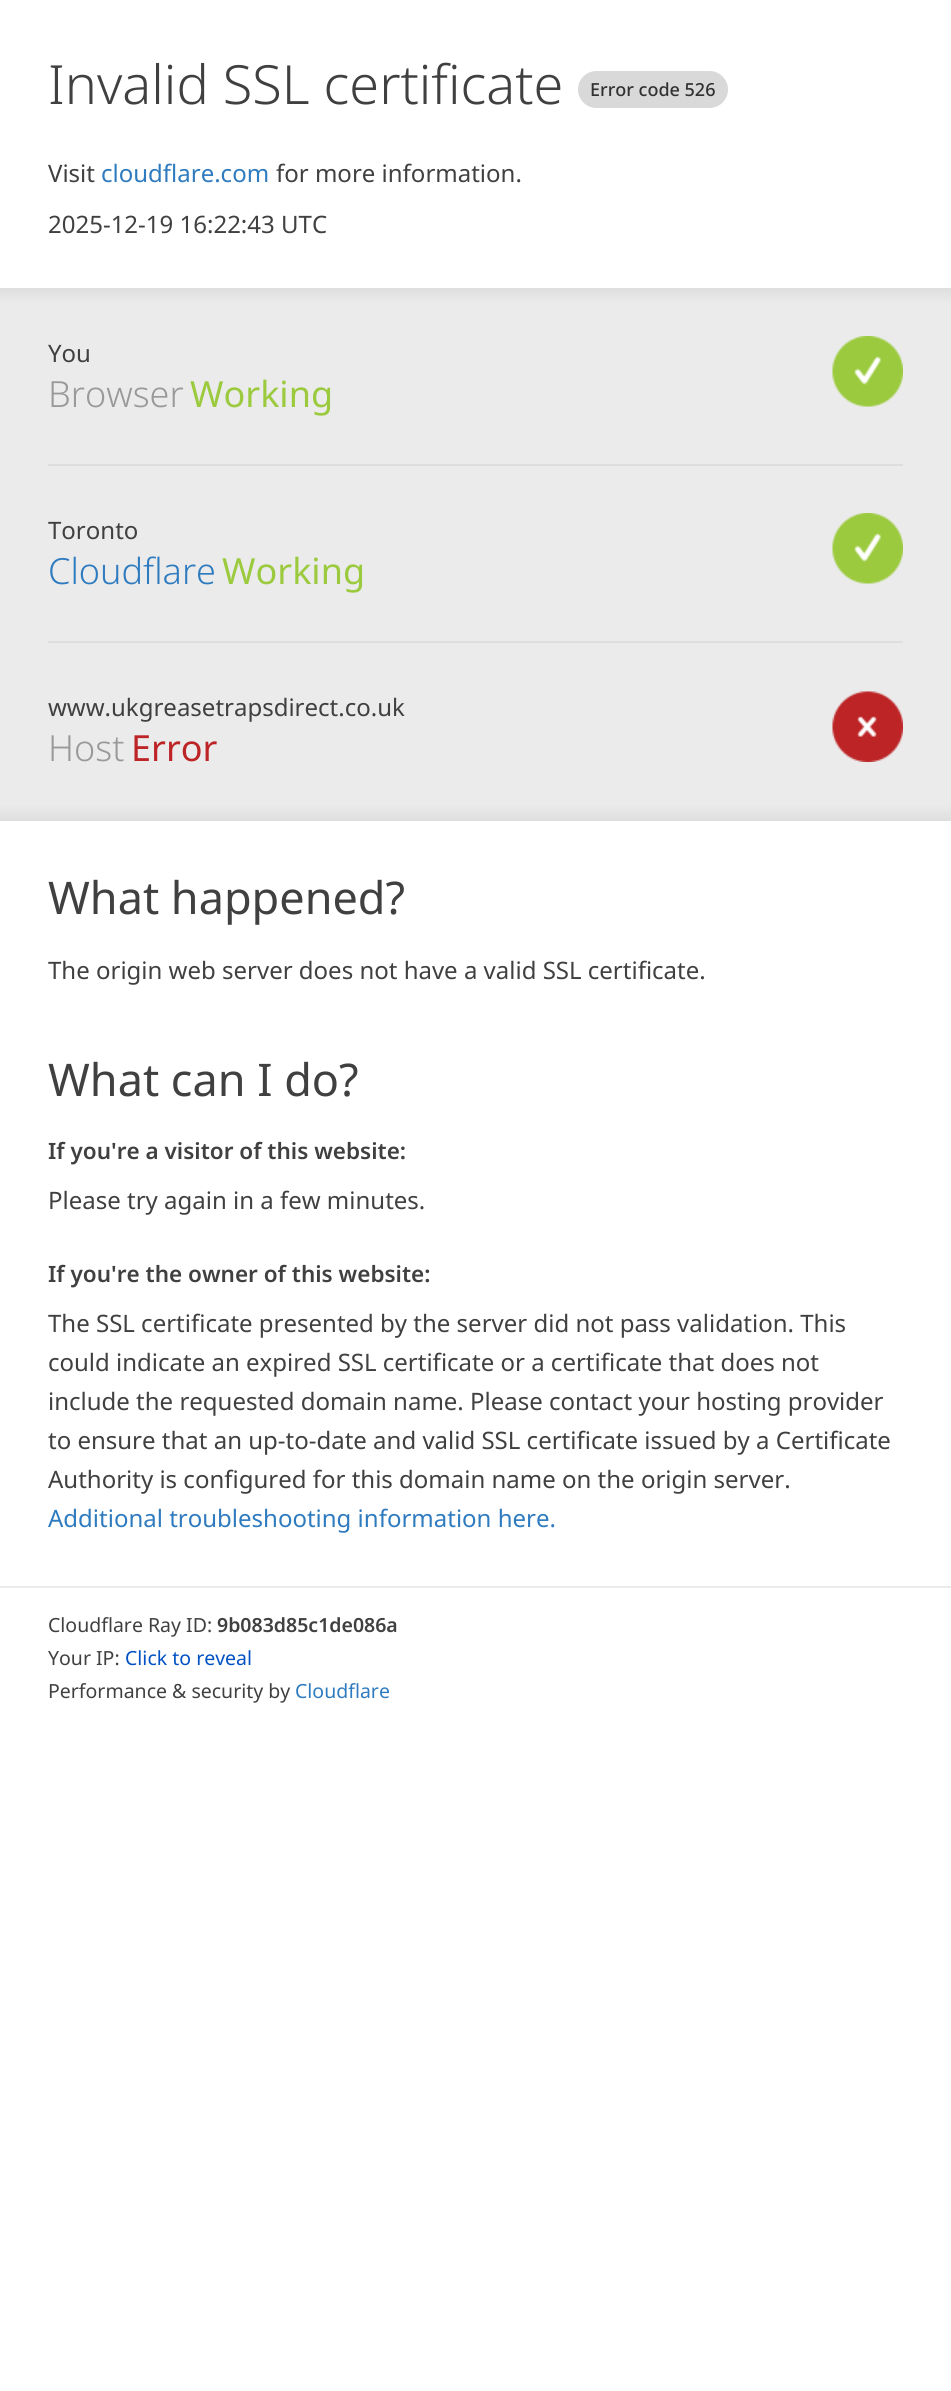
import math
import cairo

surface = cairo.ImageSurface(cairo.FORMAT_RGB24, 951, 2391)
ctx = cairo.Context(surface)
options = cairo.FontOptions()
options.set_hint_metrics(cairo.HINT_METRICS_OFF)
options.set_hint_style(cairo.HINT_STYLE_NONE)
ctx.set_font_options(options)
ctx.set_miter_limit(4)


def set_color(code):
    ctx.set_source_rgb(*(v / 255 for v in bytes.fromhex(code[-6:])))


def draw_text(x, y, s, family, size, color, bold=False, italic=False):
    ctx.select_font_face(family, cairo.FONT_SLANT_ITALIC if italic else cairo.FONT_SLANT_NORMAL, cairo.FONT_WEIGHT_BOLD if bold else cairo.FONT_WEIGHT_NORMAL)
    ctx.set_font_size(size)
    set_color(color)
    ctx.move_to(x, y)
    ctx.show_text(s)


def fill_rect(x, y, w, h, color):
    set_color(color)
    ctx.rectangle(x, y, w, h)
    ctx.fill()


def rounded_rect(x, y, w, h, r):
    ctx.new_sub_path()
    for i, (u, v) in enumerate([(x + w - r, y + h - r), (x + r, y + h - r), (x + r, y + r), (x + w - r, y + r)]):
        ctx.arc(u, v, r, i * math.pi / 2, (i + 1) * math.pi / 2)
    ctx.close_path()


def draw_image(path, x, y, w, h):
    ctx.save()
    ctx.set_source_surface(cairo.ImageSurface.create_from_png(path), x, y)
    ctx.rectangle(x, y, w, h)
    ctx.fill()
    ctx.restore()


set_color("#ffffff")
ctx.paint()
draw_text(48, 104, "Invalid SSL certificate", "Noto Sans Light", 54, "#404040")
set_color("#d9d9d9")
rounded_rect(578, 71, 150, 37, 18.5)
ctx.fill()
draw_text(590, 96, "Error code 526", "Noto Sans Medium", 18, "#313131")
draw_text(48, 182, "Visit", "Noto Sans", 24, "#404040")
draw_text(101, 182, "cloudflare.com", "Noto Sans", 24, "#2f7bbf")
draw_text(276, 182, "for more information.", "Noto Sans", 24, "#404040")
draw_text(48, 233, "2025-12-19 16:22:43 UTC", "Noto Sans", 24, "#404040")
gradient = cairo.LinearGradient(476, 288, 476, 821)
gradient.add_color_stop_rgba(0, 0.871, 0.871, 0.871, 1)
gradient.add_color_stop_rgba(0.03, 0.922, 0.922, 0.922, 1)
gradient.add_color_stop_rgba(0.97, 0.922, 0.922, 0.922, 1)
gradient.add_color_stop_rgba(1, 0.871, 0.871, 0.871, 1)
ctx.set_source(gradient)
ctx.rectangle(0, 288, 951, 533)
ctx.fill()
fill_rect(48, 464, 855, 2, "#dedede")
draw_text(48, 362, "You", "Noto Sans", 24, "#404040")
draw_image("assets/img1.png", 832, 336, 71, 71)
draw_text(48, 407, "Browser", "Noto Sans Light", 36, "#999999")
draw_text(190, 407, "Working", "Noto Sans", 36, "#9bca3e")
fill_rect(48, 641, 855, 2, "#dedede")
draw_text(48, 539, "Toronto", "Noto Sans", 24, "#404040")
draw_image("assets/img1.png", 832, 513, 71, 71)
draw_text(48, 584, "Cloudflare", "Noto Sans Light", 36, "#2f7bbf")
draw_text(222, 584, "Working", "Noto Sans", 36, "#9bca3e")
draw_text(48, 716, "www.ukgreasetrapsdirect.co.uk", "Noto Sans", 24, "#404040")
draw_image("assets/img2.png", 832, 691, 71, 71)
draw_text(48, 761, "Host", "Noto Sans Light", 36, "#999999")
draw_text(131, 761, "Error", "Noto Sans", 36, "#bd2426")
draw_text(48, 914, "What happened?", "Noto Sans", 45, "#404040")
draw_text(48, 979, "The origin web server does not have a valid SSL certificate.", "Noto Sans", 24, "#404040")
draw_text(48, 1096, "What can I do?", "Noto Sans", 45, "#404040")
draw_text(48, 1159, "If you're a visitor of this website:", "Noto Sans SemiBold", 22.5, "#404040")
draw_text(48, 1209, "Please try again in a few minutes.", "Noto Sans", 24, "#404040")
draw_text(48, 1282, "If you're the owner of this website:", "Noto Sans SemiBold", 22.5, "#404040")
draw_text(48, 1332, "The SSL certificate presented by the server did not pass validation. This", "Noto Sans", 24, "#404040")
draw_text(48, 1371, "could indicate an expired SSL certificate or a certificate that does not", "Noto Sans", 24, "#404040")
draw_text(48, 1410, "include the requested domain name. Please contact your hosting provider", "Noto Sans", 24, "#404040")
draw_text(48, 1449, "to ensure that an up-to-date and valid SSL certificate issued by a Certificate", "Noto Sans", 24, "#404040")
draw_text(48, 1488, "Authority is configured for this domain name on the origin server.", "Noto Sans", 24, "#404040")
draw_text(48, 1527, "Additional troubleshooting information here.", "Noto Sans", 24, "#2f7bbf")
fill_rect(0, 1586, 951, 2, "#ebebeb")
draw_text(48, 1632, "Cloudflare Ray ID:", "Noto Sans", 19.5, "#404040")
draw_text(217, 1632, "9b083d85c1de086a", "Noto Sans SemiBold", 19.5, "#404040")
draw_text(48, 1665, "Your IP:", "Noto Sans", 19.5, "#404040")
draw_text(125, 1665, "Click to reveal", "Noto Sans", 19.5, "#0051c3")
draw_text(48, 1698, "Performance & security by", "Noto Sans", 19.5, "#404040")
draw_text(295, 1698, "Cloudflare", "Noto Sans", 19.5, "#2f7bbf")
surface.write_to_png("output.png")
